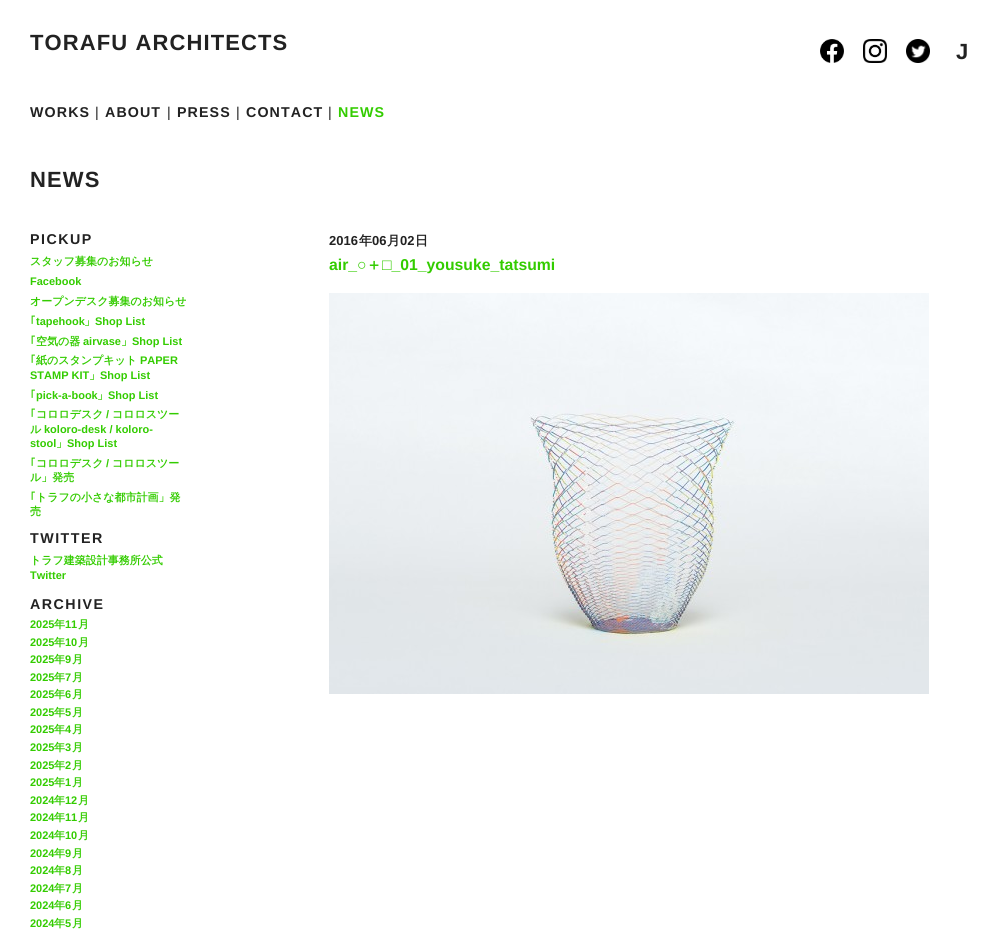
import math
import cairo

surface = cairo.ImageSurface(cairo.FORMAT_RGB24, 999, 932)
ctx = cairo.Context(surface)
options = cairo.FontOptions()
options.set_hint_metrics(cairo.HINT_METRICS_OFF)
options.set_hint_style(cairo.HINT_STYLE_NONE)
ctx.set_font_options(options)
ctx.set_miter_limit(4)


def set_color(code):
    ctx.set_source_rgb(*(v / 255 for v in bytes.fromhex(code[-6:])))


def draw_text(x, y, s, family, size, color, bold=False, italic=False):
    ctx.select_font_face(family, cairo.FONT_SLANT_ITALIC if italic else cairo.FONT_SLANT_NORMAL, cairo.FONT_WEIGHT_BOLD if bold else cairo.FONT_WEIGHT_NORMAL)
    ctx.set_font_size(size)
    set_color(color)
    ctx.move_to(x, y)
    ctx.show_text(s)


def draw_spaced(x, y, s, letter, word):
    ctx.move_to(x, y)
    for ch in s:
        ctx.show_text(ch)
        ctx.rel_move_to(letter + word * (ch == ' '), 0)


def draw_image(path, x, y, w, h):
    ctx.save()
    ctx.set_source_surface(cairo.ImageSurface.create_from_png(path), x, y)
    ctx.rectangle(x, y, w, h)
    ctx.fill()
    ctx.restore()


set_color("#ffffff")
ctx.paint()
ctx.select_font_face("Liberation Sans", cairo.FONT_SLANT_NORMAL, cairo.FONT_WEIGHT_BOLD)
ctx.set_font_size(22)
set_color("#222222")
draw_spaced(30, 50, "TORAFU ARCHITECTS", 1.1, 0)
draw_image("assets/img1.png", 820, 39, 24, 24)
draw_image("assets/img2.png", 863, 39, 24, 24)
draw_image("assets/img3.png", 906, 39, 24, 24)
draw_spaced(956, 59, "J", 1.1, 0)
ctx.set_font_size(14.25)
draw_spaced(30, 117, "WORKS", 1.1, 0)
ctx.select_font_face("Liberation Sans")
draw_spaced(95, 117, "|", 1.1, 0)
ctx.select_font_face("Liberation Sans", cairo.FONT_SLANT_NORMAL, cairo.FONT_WEIGHT_BOLD)
draw_spaced(105, 117, "ABOUT", 1.1, 0)
ctx.select_font_face("Liberation Sans")
draw_spaced(167, 117, "|", 1.1, 0)
ctx.select_font_face("Liberation Sans", cairo.FONT_SLANT_NORMAL, cairo.FONT_WEIGHT_BOLD)
draw_spaced(177, 117, "PRESS", 1.1, 0)
ctx.select_font_face("Liberation Sans")
draw_spaced(236, 117, "|", 1.1, 0)
ctx.select_font_face("Liberation Sans", cairo.FONT_SLANT_NORMAL, cairo.FONT_WEIGHT_BOLD)
draw_spaced(246, 117, "CONTACT", 1.1, 0)
ctx.select_font_face("Liberation Sans")
draw_spaced(328, 117, "|", 1.1, 0)
ctx.select_font_face("Liberation Sans", cairo.FONT_SLANT_NORMAL, cairo.FONT_WEIGHT_BOLD)
set_color("#33cc00")
draw_spaced(338, 117, "NEWS", 1.1, 0)
ctx.set_font_size(22)
set_color("#222222")
draw_spaced(30, 187, "NEWS", 1.1, 0)
ctx.set_font_size(14.25)
draw_spaced(30, 244, "PICKUP", 1.5, 0)
draw_text(30, 265, "スタッフ募集のお知らせ", "WenQuanYi Zen Hei", 11, "#33cc00", bold=True)
draw_text(30, 285, "Facebook", "Liberation Sans", 11, "#33cc00", bold=True)
draw_text(30, 305, "オープンデスク募集のお知らせ", "WenQuanYi Zen Hei", 11, "#33cc00", bold=True)
draw_text(30, 325, "｢", "IPAPGothic", 11, "#33cc00", bold=True)
draw_text(36, 325, "tapehook", "Liberation Sans", 11, "#33cc00", bold=True)
draw_text(84, 325, "」", "WenQuanYi Zen Hei", 11, "#33cc00", bold=True)
draw_text(95, 325, "Shop List", "Liberation Sans", 11, "#33cc00", bold=True)
draw_text(30, 345, "｢", "IPAPGothic", 11, "#33cc00", bold=True)
draw_text(36, 345, "空気の器", "WenQuanYi Zen Hei", 11, "#33cc00", bold=True)
draw_text(83, 345, "airvase", "Liberation Sans", 11, "#33cc00", bold=True)
draw_text(121, 345, "」", "WenQuanYi Zen Hei", 11, "#33cc00", bold=True)
draw_text(132, 345, "Shop List", "Liberation Sans", 11, "#33cc00", bold=True)
draw_text(30, 364, "｢", "IPAPGothic", 11, "#33cc00", bold=True)
draw_text(36, 364, "紙のスタンプキット", "WenQuanYi Zen Hei", 11, "#33cc00", bold=True)
draw_text(140, 364, "PAPER", "Liberation Sans", 11, "#33cc00", bold=True)
draw_text(30, 379, "STAMP KIT", "Liberation Sans", 11, "#33cc00", bold=True)
draw_text(89, 379, "」", "WenQuanYi Zen Hei", 11, "#33cc00", bold=True)
draw_text(100, 379, "Shop List", "Liberation Sans", 11, "#33cc00", bold=True)
draw_text(30, 399, "｢", "IPAPGothic", 11, "#33cc00", bold=True)
draw_text(36, 399, "pick-a-book", "Liberation Sans", 11, "#33cc00", bold=True)
draw_text(97, 399, "」", "WenQuanYi Zen Hei", 11, "#33cc00", bold=True)
draw_text(108, 399, "Shop List", "Liberation Sans", 11, "#33cc00", bold=True)
draw_text(30, 418, "｢", "IPAPGothic", 11, "#33cc00", bold=True)
draw_text(36, 418, "コロロデスク", "WenQuanYi Zen Hei", 11, "#33cc00", bold=True)
draw_text(106, 418, "/", "Liberation Sans", 11, "#33cc00", bold=True)
draw_text(112, 418, "コロロスツー", "WenQuanYi Zen Hei", 11, "#33cc00", bold=True)
draw_text(30, 433, "ル", "WenQuanYi Zen Hei", 11, "#33cc00", bold=True)
draw_text(44, 433, "koloro-desk / koloro-", "Liberation Sans", 11, "#33cc00", bold=True)
draw_text(30, 447, "stool", "Liberation Sans", 11, "#33cc00", bold=True)
draw_text(56, 447, "」", "WenQuanYi Zen Hei", 11, "#33cc00", bold=True)
draw_text(67, 447, "Shop List", "Liberation Sans", 11, "#33cc00", bold=True)
draw_text(30, 467, "｢", "IPAPGothic", 11, "#33cc00", bold=True)
draw_text(36, 467, "コロロデスク", "WenQuanYi Zen Hei", 11, "#33cc00", bold=True)
draw_text(106, 467, "/", "Liberation Sans", 11, "#33cc00", bold=True)
draw_text(112, 467, "コロロスツー", "WenQuanYi Zen Hei", 11, "#33cc00", bold=True)
draw_text(30, 481, "ル」発売", "WenQuanYi Zen Hei", 11, "#33cc00", bold=True)
draw_text(30, 501, "｢", "IPAPGothic", 11, "#33cc00", bold=True)
draw_text(36, 501, "トラフの小さな都市計画」発", "WenQuanYi Zen Hei", 11, "#33cc00", bold=True)
draw_text(30, 515, "売", "WenQuanYi Zen Hei", 11, "#33cc00", bold=True)
ctx.select_font_face("Liberation Sans", cairo.FONT_SLANT_NORMAL, cairo.FONT_WEIGHT_BOLD)
ctx.set_font_size(14.25)
set_color("#222222")
draw_spaced(30, 543, "TWITTER", 1.5, 0)
draw_text(30, 564, "トラフ建築設計事務所公式", "WenQuanYi Zen Hei", 11, "#33cc00", bold=True)
draw_text(30, 579, "Twitter", "Liberation Sans", 11, "#33cc00", bold=True)
ctx.set_font_size(14.25)
set_color("#222222")
draw_spaced(30, 609, "ARCHIVE", 1.5, 0)
draw_text(30, 628, "2025", "Liberation Sans", 11, "#33cc00", bold=True)
draw_text(54, 628, "年", "WenQuanYi Zen Hei", 11, "#33cc00", bold=True)
draw_text(65, 628, "11", "Liberation Sans", 11, "#33cc00", bold=True)
draw_text(78, 628, "月", "WenQuanYi Zen Hei", 11, "#33cc00", bold=True)
draw_text(30, 646, "2025", "Liberation Sans", 11, "#33cc00", bold=True)
draw_text(54, 646, "年", "WenQuanYi Zen Hei", 11, "#33cc00", bold=True)
draw_text(65, 646, "10", "Liberation Sans", 11, "#33cc00", bold=True)
draw_text(78, 646, "月", "WenQuanYi Zen Hei", 11, "#33cc00", bold=True)
draw_text(30, 663, "2025", "Liberation Sans", 11, "#33cc00", bold=True)
draw_text(54, 663, "年", "WenQuanYi Zen Hei", 11, "#33cc00", bold=True)
draw_text(65, 663, "9", "Liberation Sans", 11, "#33cc00", bold=True)
draw_text(72, 663, "月", "WenQuanYi Zen Hei", 11, "#33cc00", bold=True)
draw_text(30, 681, "2025", "Liberation Sans", 11, "#33cc00", bold=True)
draw_text(54, 681, "年", "WenQuanYi Zen Hei", 11, "#33cc00", bold=True)
draw_text(65, 681, "7", "Liberation Sans", 11, "#33cc00", bold=True)
draw_text(72, 681, "月", "WenQuanYi Zen Hei", 11, "#33cc00", bold=True)
draw_text(30, 698, "2025", "Liberation Sans", 11, "#33cc00", bold=True)
draw_text(54, 698, "年", "WenQuanYi Zen Hei", 11, "#33cc00", bold=True)
draw_text(65, 698, "6", "Liberation Sans", 11, "#33cc00", bold=True)
draw_text(72, 698, "月", "WenQuanYi Zen Hei", 11, "#33cc00", bold=True)
draw_text(30, 716, "2025", "Liberation Sans", 11, "#33cc00", bold=True)
draw_text(54, 716, "年", "WenQuanYi Zen Hei", 11, "#33cc00", bold=True)
draw_text(65, 716, "5", "Liberation Sans", 11, "#33cc00", bold=True)
draw_text(72, 716, "月", "WenQuanYi Zen Hei", 11, "#33cc00", bold=True)
draw_text(30, 733, "2025", "Liberation Sans", 11, "#33cc00", bold=True)
draw_text(54, 733, "年", "WenQuanYi Zen Hei", 11, "#33cc00", bold=True)
draw_text(65, 733, "4", "Liberation Sans", 11, "#33cc00", bold=True)
draw_text(72, 733, "月", "WenQuanYi Zen Hei", 11, "#33cc00", bold=True)
draw_text(30, 751, "2025", "Liberation Sans", 11, "#33cc00", bold=True)
draw_text(54, 751, "年", "WenQuanYi Zen Hei", 11, "#33cc00", bold=True)
draw_text(65, 751, "3", "Liberation Sans", 11, "#33cc00", bold=True)
draw_text(72, 751, "月", "WenQuanYi Zen Hei", 11, "#33cc00", bold=True)
draw_text(30, 769, "2025", "Liberation Sans", 11, "#33cc00", bold=True)
draw_text(54, 769, "年", "WenQuanYi Zen Hei", 11, "#33cc00", bold=True)
draw_text(65, 769, "2", "Liberation Sans", 11, "#33cc00", bold=True)
draw_text(72, 769, "月", "WenQuanYi Zen Hei", 11, "#33cc00", bold=True)
draw_text(30, 786, "2025", "Liberation Sans", 11, "#33cc00", bold=True)
draw_text(54, 786, "年", "WenQuanYi Zen Hei", 11, "#33cc00", bold=True)
draw_text(65, 786, "1", "Liberation Sans", 11, "#33cc00", bold=True)
draw_text(72, 786, "月", "WenQuanYi Zen Hei", 11, "#33cc00", bold=True)
draw_text(30, 804, "2024", "Liberation Sans", 11, "#33cc00", bold=True)
draw_text(54, 804, "年", "WenQuanYi Zen Hei", 11, "#33cc00", bold=True)
draw_text(65, 804, "12", "Liberation Sans", 11, "#33cc00", bold=True)
draw_text(78, 804, "月", "WenQuanYi Zen Hei", 11, "#33cc00", bold=True)
draw_text(30, 821, "2024", "Liberation Sans", 11, "#33cc00", bold=True)
draw_text(54, 821, "年", "WenQuanYi Zen Hei", 11, "#33cc00", bold=True)
draw_text(65, 821, "11", "Liberation Sans", 11, "#33cc00", bold=True)
draw_text(78, 821, "月", "WenQuanYi Zen Hei", 11, "#33cc00", bold=True)
draw_text(30, 839, "2024", "Liberation Sans", 11, "#33cc00", bold=True)
draw_text(54, 839, "年", "WenQuanYi Zen Hei", 11, "#33cc00", bold=True)
draw_text(65, 839, "10", "Liberation Sans", 11, "#33cc00", bold=True)
draw_text(78, 839, "月", "WenQuanYi Zen Hei", 11, "#33cc00", bold=True)
draw_text(30, 857, "2024", "Liberation Sans", 11, "#33cc00", bold=True)
draw_text(54, 857, "年", "WenQuanYi Zen Hei", 11, "#33cc00", bold=True)
draw_text(65, 857, "9", "Liberation Sans", 11, "#33cc00", bold=True)
draw_text(72, 857, "月", "WenQuanYi Zen Hei", 11, "#33cc00", bold=True)
draw_text(30, 874, "2024", "Liberation Sans", 11, "#33cc00", bold=True)
draw_text(54, 874, "年", "WenQuanYi Zen Hei", 11, "#33cc00", bold=True)
draw_text(65, 874, "8", "Liberation Sans", 11, "#33cc00", bold=True)
draw_text(72, 874, "月", "WenQuanYi Zen Hei", 11, "#33cc00", bold=True)
draw_text(30, 892, "2024", "Liberation Sans", 11, "#33cc00", bold=True)
draw_text(54, 892, "年", "WenQuanYi Zen Hei", 11, "#33cc00", bold=True)
draw_text(65, 892, "7", "Liberation Sans", 11, "#33cc00", bold=True)
draw_text(72, 892, "月", "WenQuanYi Zen Hei", 11, "#33cc00", bold=True)
draw_text(30, 909, "2024", "Liberation Sans", 11, "#33cc00", bold=True)
draw_text(54, 909, "年", "WenQuanYi Zen Hei", 11, "#33cc00", bold=True)
draw_text(65, 909, "6", "Liberation Sans", 11, "#33cc00", bold=True)
draw_text(72, 909, "月", "WenQuanYi Zen Hei", 11, "#33cc00", bold=True)
draw_text(30, 927, "2024", "Liberation Sans", 11, "#33cc00", bold=True)
draw_text(54, 927, "年", "WenQuanYi Zen Hei", 11, "#33cc00", bold=True)
draw_text(65, 927, "5", "Liberation Sans", 11, "#33cc00", bold=True)
draw_text(72, 927, "月", "WenQuanYi Zen Hei", 11, "#33cc00", bold=True)
draw_text(329, 245, "2016", "Liberation Sans", 13, "#222222", bold=True)
draw_text(359, 245, "年", "WenQuanYi Zen Hei", 13, "#222222", bold=True)
draw_text(372, 245, "06", "Liberation Sans", 13, "#222222", bold=True)
draw_text(387, 245, "月", "WenQuanYi Zen Hei", 13, "#222222", bold=True)
draw_text(400, 245, "02", "Liberation Sans", 13, "#222222", bold=True)
draw_text(415, 245, "日", "WenQuanYi Zen Hei", 13, "#222222", bold=True)
draw_text(329, 270, "air_○", "Liberation Sans", 15.75, "#33cc00", bold=True)
draw_text(366, 270, "＋", "WenQuanYi Zen Hei", 15.75, "#33cc00", bold=True)
draw_text(382, 270, "□_01_yousuke_tatsumi", "Liberation Sans", 15.75, "#33cc00", bold=True)
draw_image("assets/img4.png", 329, 293, 600, 401)
surface.write_to_png("output.png")
